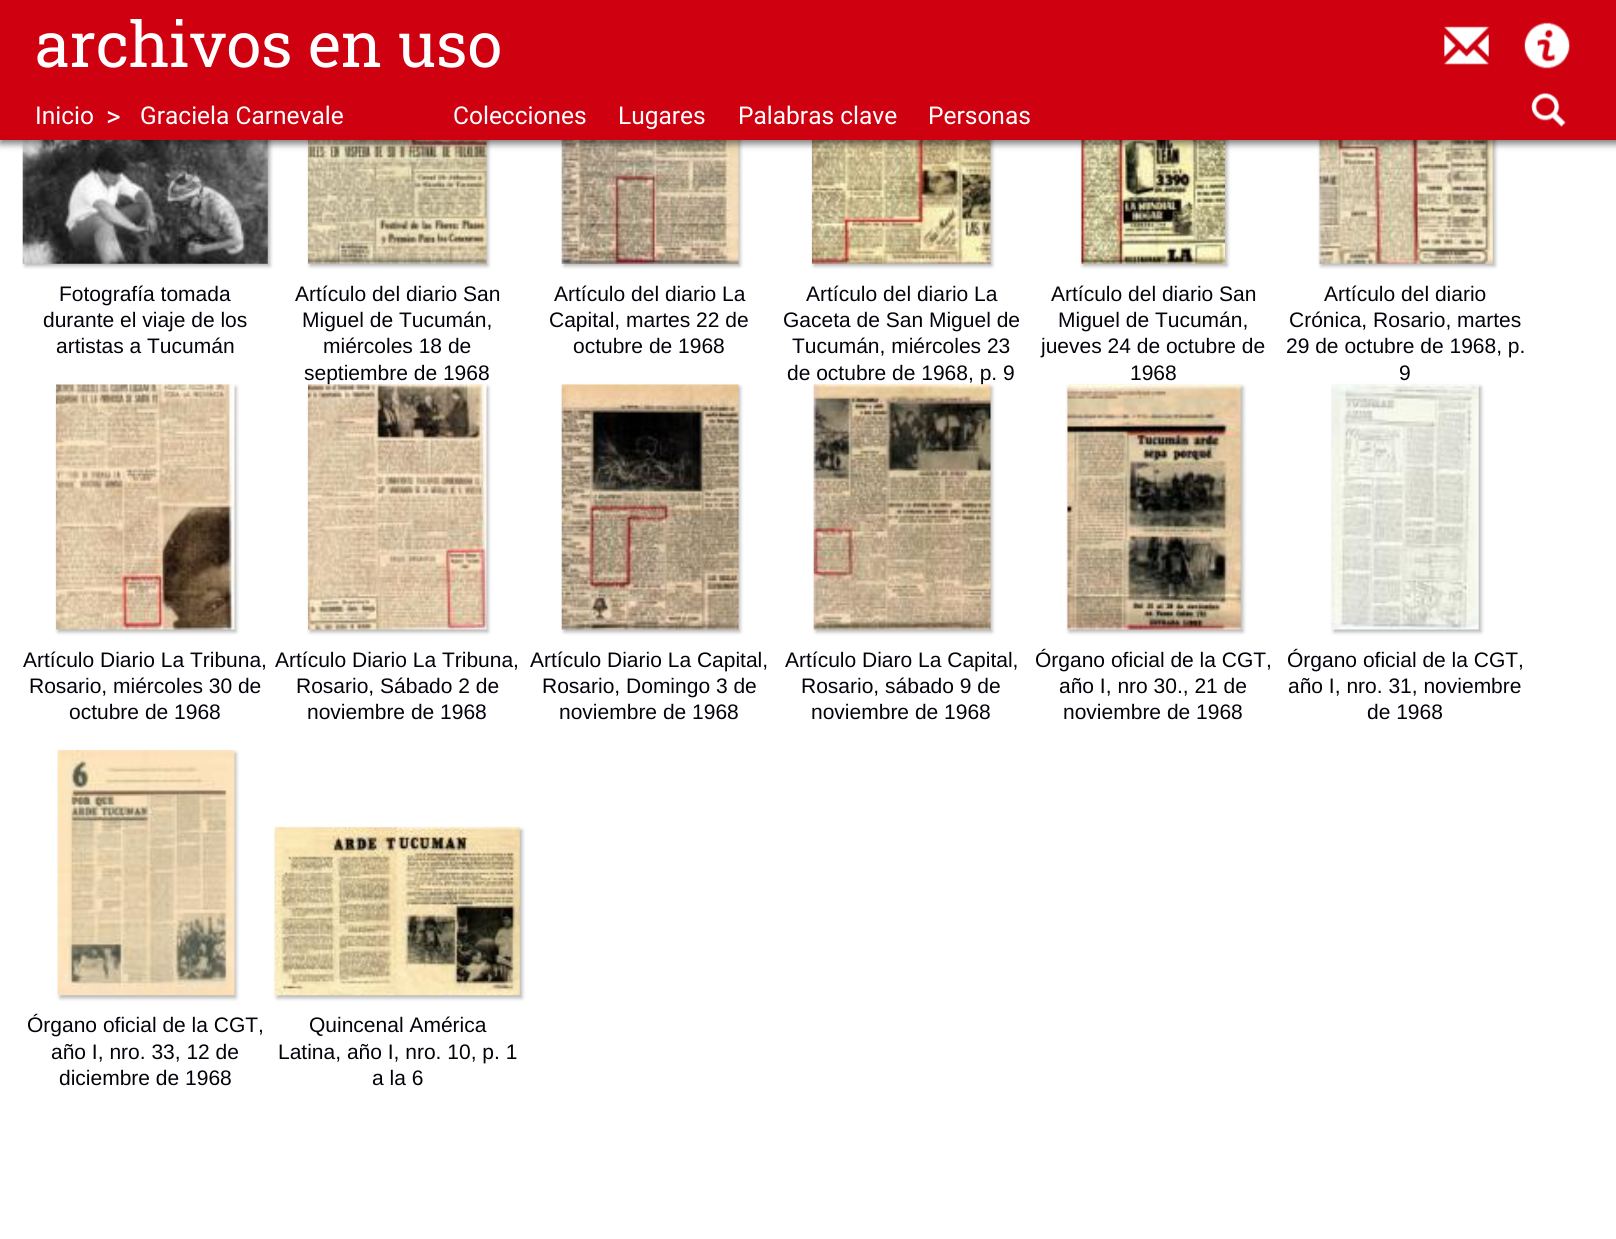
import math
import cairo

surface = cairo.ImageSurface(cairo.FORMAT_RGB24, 1616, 1239)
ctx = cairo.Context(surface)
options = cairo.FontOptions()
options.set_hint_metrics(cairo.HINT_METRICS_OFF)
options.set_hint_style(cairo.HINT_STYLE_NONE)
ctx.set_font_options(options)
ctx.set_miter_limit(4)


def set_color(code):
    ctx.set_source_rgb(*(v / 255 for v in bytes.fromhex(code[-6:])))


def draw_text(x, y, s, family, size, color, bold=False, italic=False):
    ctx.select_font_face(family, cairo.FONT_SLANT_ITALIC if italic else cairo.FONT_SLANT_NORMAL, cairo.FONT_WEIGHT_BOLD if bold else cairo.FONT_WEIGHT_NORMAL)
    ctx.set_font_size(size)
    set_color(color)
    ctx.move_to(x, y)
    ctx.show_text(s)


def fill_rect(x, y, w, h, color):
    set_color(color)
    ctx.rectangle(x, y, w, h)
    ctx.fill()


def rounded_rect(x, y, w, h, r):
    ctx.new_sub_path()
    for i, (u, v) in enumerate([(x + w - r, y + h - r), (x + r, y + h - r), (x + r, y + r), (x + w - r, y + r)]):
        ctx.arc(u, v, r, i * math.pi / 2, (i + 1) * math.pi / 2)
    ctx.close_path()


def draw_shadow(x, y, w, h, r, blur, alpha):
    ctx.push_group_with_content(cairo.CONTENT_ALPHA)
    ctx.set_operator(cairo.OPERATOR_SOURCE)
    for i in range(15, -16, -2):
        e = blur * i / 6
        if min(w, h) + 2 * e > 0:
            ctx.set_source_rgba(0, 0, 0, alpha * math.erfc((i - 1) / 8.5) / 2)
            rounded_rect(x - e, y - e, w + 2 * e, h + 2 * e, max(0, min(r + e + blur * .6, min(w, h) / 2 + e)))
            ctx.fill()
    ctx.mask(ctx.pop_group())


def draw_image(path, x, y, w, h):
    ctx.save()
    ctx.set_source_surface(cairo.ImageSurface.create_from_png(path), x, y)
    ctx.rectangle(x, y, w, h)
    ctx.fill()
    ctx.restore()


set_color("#ffffff")
ctx.paint()
set_color("#000000")
draw_shadow(25, 96, 245, 170, 0, 2, 0.3)
draw_image("assets/img4.png", 22, 140, 246, 124)
draw_shadow(310, 21, 178, 245, 0, 2, 0.3)
draw_image("assets/img5.png", 308, 140, 179, 124)
draw_shadow(564, 21, 176, 245, 0, 2, 0.3)
draw_image("assets/img6.png", 561, 140, 178, 124)
draw_shadow(814, 21, 178, 245, 0, 2, 0.3)
draw_image("assets/img7.png", 812, 140, 179, 124)
draw_shadow(1083, 21, 144, 245, 0, 2, 0.3)
draw_image("assets/img8.png", 1081, 140, 144, 124)
draw_shadow(1321, 21, 174, 245, 0, 2, 0.3)
draw_image("assets/img9.png", 1319, 140, 174, 124)
draw_shadow(0, 4, 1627, 140, 0, 3.5, 0.5)
fill_rect(0, 0, 1616, 140, "#cf000f")
draw_text(35, 67, "archivos en uso", "Roboto Slab", 63, "#ffffff")
draw_image("assets/img1.png", 1444, 26, 45, 39)
draw_image("assets/img2.png", 1524, 22, 46, 47)
draw_text(35, 124, "Inicio", "Roboto", 24.5, "#ffffff")
draw_text(106, 126, ">", "Roboto", 28, "#ffffff")
draw_text(140, 124, "Graciela Carnevale", "Roboto", 24.5, "#ffffff")
draw_text(453, 124, "Colecciones", "Roboto", 24.5, "#ffffff")
draw_text(618, 124, "Lugares", "Roboto", 24.5, "#ffffff")
draw_text(738, 124, "Palabras clave", "Roboto", 24.5, "#ffffff")
draw_text(928, 124, "Personas", "Roboto", 24.5, "#ffffff")
draw_image("assets/img3.png", 1531, 93, 35, 34)
draw_text(59, 301, "Fotografía tomada", "Liberation Sans", 21, "#03020a")
draw_text(43, 327, "durante el viaje de los", "Liberation Sans", 21, "#03020a")
draw_text(56, 353, "artistas a Tucumán", "Liberation Sans", 21, "#03020a")
draw_text(295, 301, "Artículo del diario San", "Liberation Sans", 21, "#03020a")
draw_text(302, 327, "Miguel de Tucumán,", "Liberation Sans", 21, "#03020a")
draw_text(323, 353, "miércoles 18 de", "Liberation Sans", 21, "#03020a")
draw_text(304, 380, "septiembre de 1968", "Liberation Sans", 21, "#03020a")
draw_text(554, 301, "Artículo del diario La", "Liberation Sans", 21, "#03020a")
draw_text(549, 327, "Capital, martes 22 de", "Liberation Sans", 21, "#03020a")
draw_text(573, 353, "octubre de 1968", "Liberation Sans", 21, "#03020a")
draw_text(806, 301, "Artículo del diario La", "Liberation Sans", 21, "#03020a")
draw_text(783, 327, "Gaceta de San Miguel de", "Liberation Sans", 21, "#03020a")
draw_text(792, 353, "Tucumán, miércoles 23", "Liberation Sans", 21, "#03020a")
draw_text(787, 380, "de octubre de 1968, p. 9", "Liberation Sans", 21, "#03020a")
draw_text(1051, 301, "Artículo del diario San", "Liberation Sans", 21, "#03020a")
draw_text(1058, 327, "Miguel de Tucumán,", "Liberation Sans", 21, "#03020a")
draw_text(1041, 353, "jueves 24 de octubre de", "Liberation Sans", 21, "#03020a")
draw_text(1130, 380, "1968", "Liberation Sans", 21, "#03020a")
draw_text(1324, 301, "Artículo del diario", "Liberation Sans", 21, "#03020a")
draw_text(1289, 327, "Crónica, Rosario, martes", "Liberation Sans", 21, "#03020a")
draw_text(1286, 353, "29 de octubre de 1968, p.", "Liberation Sans", 21, "#03020a")
draw_text(1399, 380, "9", "Liberation Sans", 21, "#03020a")
set_color("#000000")
draw_shadow(58, 387, 178, 245, 0, 2, 0.3)
draw_image("assets/img10.png", 56, 384, 179, 246)
draw_text(23, 667, "Artículo Diario La Tribuna,", "Liberation Sans", 21, "#03020a")
draw_text(29, 693, "Rosario, miércoles 30 de", "Liberation Sans", 21, "#03020a")
draw_text(69, 719, "octubre de 1968", "Liberation Sans", 21, "#03020a")
set_color("#000000")
draw_shadow(310, 387, 178, 245, 0, 2, 0.3)
draw_image("assets/img11.png", 308, 384, 179, 246)
draw_text(275, 667, "Artículo Diario La Tribuna,", "Liberation Sans", 21, "#03020a")
draw_text(296, 693, "Rosario, Sábado 2 de", "Liberation Sans", 21, "#03020a")
draw_text(307, 719, "noviembre de 1968", "Liberation Sans", 21, "#03020a")
set_color("#000000")
draw_shadow(564, 387, 176, 245, 0, 2, 0.3)
draw_image("assets/img12.png", 561, 384, 178, 246)
draw_text(530, 667, "Artículo Diario La Capital,", "Liberation Sans", 21, "#03020a")
draw_text(542, 693, "Rosario, Domingo 3 de", "Liberation Sans", 21, "#03020a")
draw_text(559, 719, "noviembre de 1968", "Liberation Sans", 21, "#03020a")
set_color("#000000")
draw_shadow(816, 387, 176, 245, 0, 2, 0.3)
draw_image("assets/img13.png", 813, 384, 178, 246)
draw_text(785, 667, "Artículo Diaro La Capital,", "Liberation Sans", 21, "#03020a")
draw_text(801, 693, "Rosario, sábado 9 de", "Liberation Sans", 21, "#03020a")
draw_text(811, 719, "noviembre de 1968", "Liberation Sans", 21, "#03020a")
set_color("#000000")
draw_shadow(1069, 387, 174, 245, 0, 2, 0.3)
draw_image("assets/img14.png", 1067, 384, 174, 246)
draw_text(1035, 667, "Órgano oficial de la CGT,", "Liberation Sans", 21, "#03020a")
draw_text(1059, 693, "año I, nro 30., 21 de", "Liberation Sans", 21, "#03020a")
draw_text(1063, 719, "noviembre de 1968", "Liberation Sans", 21, "#03020a")
set_color("#000000")
draw_shadow(1334, 387, 147, 245, 0, 2, 0.3)
draw_image("assets/img15.png", 1331, 384, 148, 246)
draw_text(1287, 667, "Órgano oficial de la CGT,", "Liberation Sans", 21, "#03020a")
draw_text(1288, 693, "año I, nro. 31, noviembre", "Liberation Sans", 21, "#03020a")
draw_text(1367, 719, "de 1968", "Liberation Sans", 21, "#03020a")
set_color("#000000")
draw_shadow(60, 753, 176, 245, 0, 2, 0.3)
draw_image("assets/img16.png", 57, 750, 178, 246)
draw_text(27, 1032, "Órgano oficial de la CGT,", "Liberation Sans", 21, "#03020a")
draw_text(51, 1059, "año I, nro. 33, 12 de", "Liberation Sans", 21, "#03020a")
draw_text(59, 1085, "diciembre de 1968", "Liberation Sans", 21, "#03020a")
set_color("#000000")
draw_shadow(277, 830, 245, 168, 0, 2, 0.3)
draw_image("assets/img17.png", 274, 827, 246, 169)
draw_text(309, 1032, "Quincenal América", "Liberation Sans", 21, "#03020a")
draw_text(278, 1059, "Latina, año I, nro. 10, p. 1", "Liberation Sans", 21, "#03020a")
draw_text(372, 1085, "a la 6", "Liberation Sans", 21, "#03020a")
surface.write_to_png("output.png")
